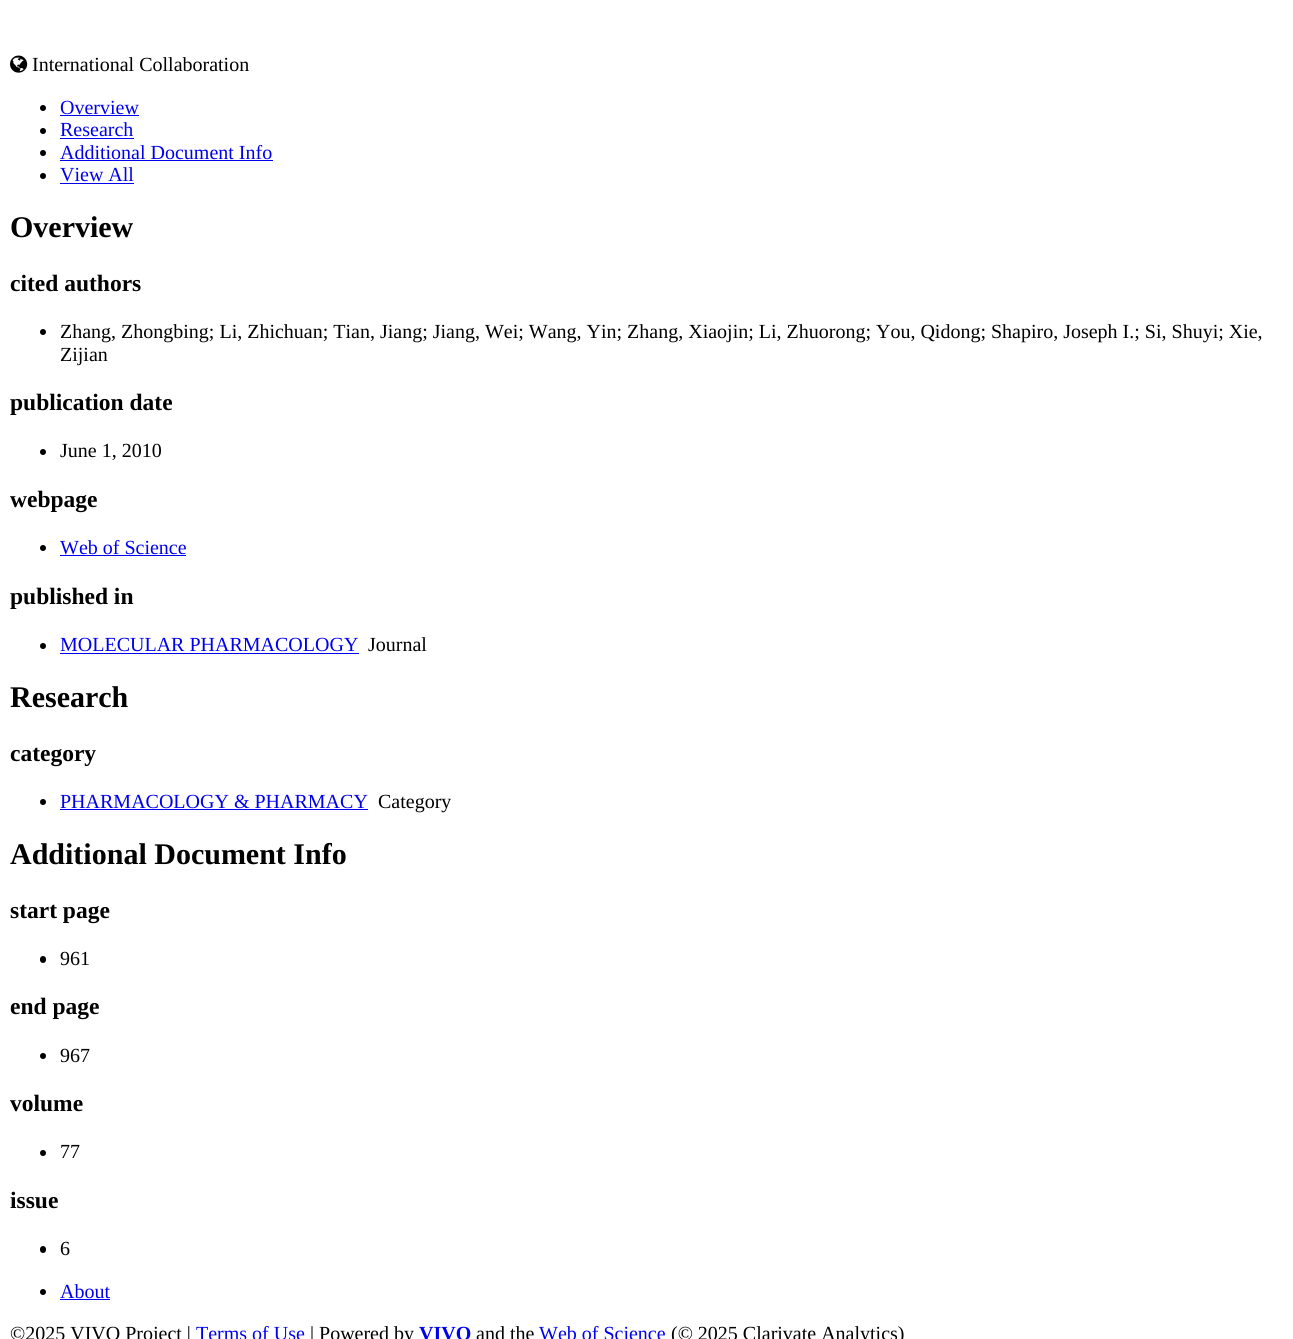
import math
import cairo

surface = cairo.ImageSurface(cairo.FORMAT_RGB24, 1293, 1339)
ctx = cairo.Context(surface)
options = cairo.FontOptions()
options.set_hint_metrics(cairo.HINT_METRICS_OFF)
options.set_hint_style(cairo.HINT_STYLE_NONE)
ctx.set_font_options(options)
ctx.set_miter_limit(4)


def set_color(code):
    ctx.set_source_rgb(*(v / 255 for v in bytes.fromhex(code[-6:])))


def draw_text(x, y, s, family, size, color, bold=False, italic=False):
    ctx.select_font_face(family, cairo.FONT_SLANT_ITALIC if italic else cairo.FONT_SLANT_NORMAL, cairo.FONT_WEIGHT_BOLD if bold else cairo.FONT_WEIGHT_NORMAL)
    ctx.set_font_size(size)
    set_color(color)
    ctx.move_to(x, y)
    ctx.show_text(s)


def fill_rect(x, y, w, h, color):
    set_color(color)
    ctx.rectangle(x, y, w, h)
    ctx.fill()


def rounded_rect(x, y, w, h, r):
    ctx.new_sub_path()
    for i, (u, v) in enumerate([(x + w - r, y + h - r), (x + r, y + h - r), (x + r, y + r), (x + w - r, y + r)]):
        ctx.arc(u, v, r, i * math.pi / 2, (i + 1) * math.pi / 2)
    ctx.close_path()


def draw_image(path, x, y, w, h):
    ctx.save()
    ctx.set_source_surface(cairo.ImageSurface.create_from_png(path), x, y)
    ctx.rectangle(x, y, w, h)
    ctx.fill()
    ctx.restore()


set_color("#ffffff")
ctx.paint()
draw_image("assets/img1.png", 10, 55, 18, 18)
draw_text(32, 71, "International Collaboration", "Liberation Serif", 20, "#000000")
ctx.new_path()
ctx.arc(43, 108, 3, 0, 2 * math.pi)
ctx.fill()
draw_text(60, 114, "Overview", "Liberation Serif", 20, "#0000ee")
fill_rect(60, 115, 79, 1, "#0000ee")
set_color("#000000")
ctx.new_path()
ctx.arc(43, 131, 3, 0, 2 * math.pi)
ctx.fill()
draw_text(60, 136, "Research", "Liberation Serif", 20, "#0000ee")
fill_rect(60, 138, 74, 1, "#0000ee")
set_color("#000000")
ctx.new_path()
ctx.arc(43, 153, 3, 0, 2 * math.pi)
ctx.fill()
draw_text(60, 159, "Additional Document Info", "Liberation Serif", 20, "#0000ee")
fill_rect(60, 160, 213, 1, "#0000ee")
set_color("#000000")
ctx.new_path()
ctx.arc(43, 176, 3, 0, 2 * math.pi)
ctx.fill()
draw_text(60, 181, "View All", "Liberation Serif", 20, "#0000ee")
fill_rect(60, 183, 74, 1, "#0000ee")
draw_text(10, 237, "Overview", "Liberation Serif", 30, "#000000", bold=True)
draw_text(10, 291, "cited authors", "Liberation Serif", 23.5, "#000000", bold=True)
ctx.new_path()
ctx.arc(43, 332, 3, 0, 2 * math.pi)
ctx.fill()
draw_text(60, 338, "Zhang, Zhongbing; Li, Zhichuan; Tian, Jiang; Jiang, Wei; Wang, Yin; Zhang, Xiaojin; Li, Zhuorong; You, Qidong; Shapiro, Joseph I.; Si, Shuyi; Xie,", "Liberation Serif", 20, "#000000")
draw_text(60, 361, "Zijian", "Liberation Serif", 20, "#000000")
draw_text(10, 410, "publication date", "Liberation Serif", 23.5, "#000000", bold=True)
ctx.new_path()
ctx.arc(43, 452, 3, 0, 2 * math.pi)
ctx.fill()
draw_text(60, 457, "June 1, 2010", "Liberation Serif", 20, "#000000")
draw_text(10, 507, "webpage", "Liberation Serif", 23.5, "#000000", bold=True)
ctx.new_path()
ctx.arc(43, 548, 3, 0, 2 * math.pi)
ctx.fill()
draw_text(60, 554, "Web of Science", "Liberation Serif", 20, "#0000ee")
fill_rect(60, 555, 126, 1, "#0000ee")
draw_text(10, 604, "published in", "Liberation Serif", 23.5, "#000000", bold=True)
ctx.new_path()
ctx.arc(43, 646, 3, 0, 2 * math.pi)
ctx.fill()
draw_text(60, 651, "MOLECULAR PHARMACOLOGY", "Liberation Serif", 20, "#0000ee")
fill_rect(60, 653, 299, 1, "#0000ee")
draw_text(368, 651, "Journal", "Liberation Serif", 20, "#000000")
draw_text(10, 707, "Research", "Liberation Serif", 30, "#000000", bold=True)
draw_text(10, 761, "category", "Liberation Serif", 23.5, "#000000", bold=True)
ctx.new_path()
ctx.arc(43, 802, 3, 0, 2 * math.pi)
ctx.fill()
draw_text(60, 808, "PHARMACOLOGY & PHARMACY", "Liberation Serif", 20, "#0000ee")
fill_rect(60, 809, 308, 1, "#0000ee")
draw_text(378, 808, "Category", "Liberation Serif", 20, "#000000")
draw_text(10, 864, "Additional Document Info", "Liberation Serif", 30, "#000000", bold=True)
draw_text(10, 918, "start page", "Liberation Serif", 23.5, "#000000", bold=True)
rounded_rect(40, 956, 6, 7, 3)
ctx.fill()
draw_text(60, 965, "961", "Liberation Serif", 20, "#000000")
draw_text(10, 1014, "end page", "Liberation Serif", 23.5, "#000000", bold=True)
ctx.new_path()
ctx.arc(43, 1056, 3, 0, 2 * math.pi)
ctx.fill()
draw_text(60, 1062, "967", "Liberation Serif", 20, "#000000")
draw_text(10, 1111, "volume", "Liberation Serif", 23.5, "#000000", bold=True)
ctx.new_path()
ctx.arc(43, 1153, 3, 0, 2 * math.pi)
ctx.fill()
draw_text(60, 1158, "77", "Liberation Serif", 20, "#000000")
draw_text(10, 1208, "issue", "Liberation Serif", 23.5, "#000000", bold=True)
rounded_rect(40, 1246, 6, 7, 3)
ctx.fill()
draw_text(60, 1255, "6", "Liberation Serif", 20, "#000000")
ctx.new_path()
ctx.arc(43, 1292, 3, 0, 2 * math.pi)
ctx.fill()
draw_text(60, 1298, "About", "Liberation Serif", 20, "#0000ee")
fill_rect(60, 1299, 50, 1, "#0000ee")
draw_text(10, 1340, "©2025 VIVO Project |", "Liberation Serif", 20, "#000000")
draw_text(196, 1340, "Terms of Use", "Liberation Serif", 20, "#0000ee")
draw_text(310, 1340, "| Powered by", "Liberation Serif", 20, "#000000")
draw_text(419, 1340, "VIVO", "Liberation Serif", 20, "#0000ee", bold=True)
draw_text(476, 1340, "and the", "Liberation Serif", 20, "#000000")
draw_text(539, 1340, "Web of Science", "Liberation Serif", 20, "#0000ee")
draw_text(671, 1340, "(© 2025 Clarivate Analytics)", "Liberation Serif", 20, "#000000")
surface.write_to_png("output.png")
